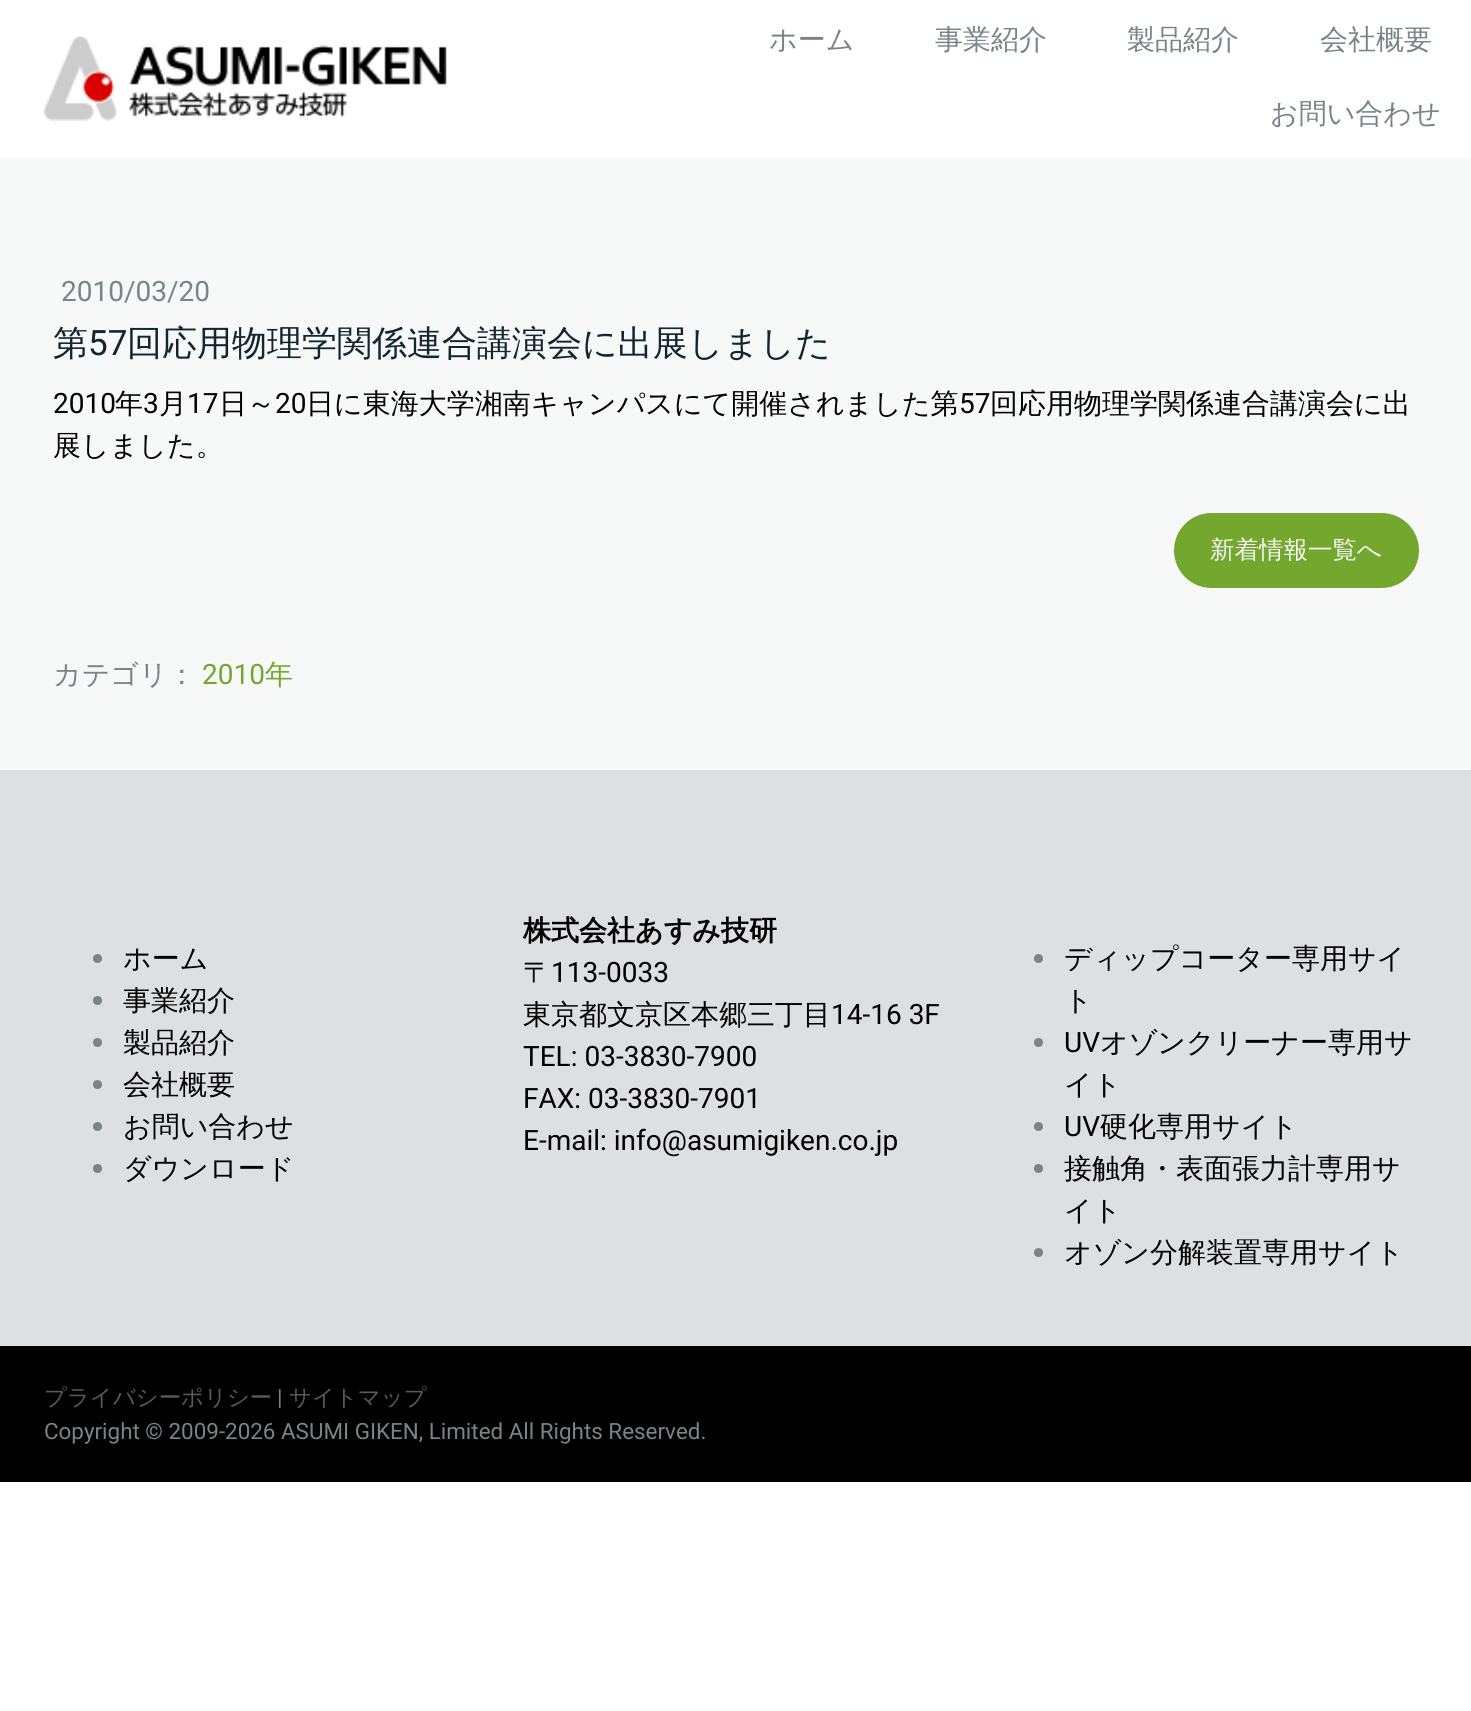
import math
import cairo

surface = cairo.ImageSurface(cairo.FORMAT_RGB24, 1471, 1711)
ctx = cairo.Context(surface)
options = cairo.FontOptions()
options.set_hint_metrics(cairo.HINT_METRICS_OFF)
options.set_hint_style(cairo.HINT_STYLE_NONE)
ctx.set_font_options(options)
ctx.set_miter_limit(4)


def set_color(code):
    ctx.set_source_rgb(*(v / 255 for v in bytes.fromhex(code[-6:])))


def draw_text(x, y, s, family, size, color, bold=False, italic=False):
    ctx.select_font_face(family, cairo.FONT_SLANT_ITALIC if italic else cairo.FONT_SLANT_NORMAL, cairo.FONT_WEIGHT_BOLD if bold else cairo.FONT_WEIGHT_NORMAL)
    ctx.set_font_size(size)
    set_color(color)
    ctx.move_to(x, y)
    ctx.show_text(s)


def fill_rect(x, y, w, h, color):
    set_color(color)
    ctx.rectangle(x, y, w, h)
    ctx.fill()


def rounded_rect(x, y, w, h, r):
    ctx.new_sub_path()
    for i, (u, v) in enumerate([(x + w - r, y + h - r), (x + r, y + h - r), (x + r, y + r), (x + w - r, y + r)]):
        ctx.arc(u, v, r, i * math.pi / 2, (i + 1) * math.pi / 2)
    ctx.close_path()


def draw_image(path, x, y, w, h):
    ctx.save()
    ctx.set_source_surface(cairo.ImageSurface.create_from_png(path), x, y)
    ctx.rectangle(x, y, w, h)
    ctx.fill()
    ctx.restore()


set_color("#ffffff")
ctx.paint()
draw_image("assets/img1.png", 43, 36, 404, 85)
draw_text(769, 49, "ホーム", "WenQuanYi Zen Hei Medium", 28, "#798486")
draw_text(935, 49, "事業紹介", "WenQuanYi Zen Hei Medium", 28, "#798486")
draw_text(1127, 49, "製品紹介", "WenQuanYi Zen Hei Medium", 28, "#798486")
draw_text(1320, 49, "会社概要", "WenQuanYi Zen Hei Medium", 28, "#798486")
draw_text(1270, 123, "お問い合わせ", "WenQuanYi Zen Hei Medium", 28, "#798486")
fill_rect(0, 158, 1471, 612, "#f7f8f8")
draw_text(61, 301, "2010/03/20", "Roboto", 28, "#798486")
draw_text(53, 355, "第", "WenQuanYi Zen Hei Medium", 35, "#112631")
draw_text(88, 355, "57", "Roboto", 35, "#112631")
draw_text(127, 355, "回応用物理学関係連合講演会に出展しました", "WenQuanYi Zen Hei Medium", 35, "#112631")
draw_text(53, 413, "2010", "Roboto", 28, "#000000")
draw_text(115, 413, "年", "WenQuanYi Zen Hei Medium", 28, "#000000")
draw_text(143, 413, "3", "Roboto", 28, "#000000")
draw_text(159, 413, "月", "WenQuanYi Zen Hei Medium", 28, "#000000")
draw_text(187, 413, "17", "Roboto", 28, "#000000")
draw_text(219, 413, "日～", "WenQuanYi Zen Hei Medium", 28, "#000000")
draw_text(275, 413, "20", "Roboto", 28, "#000000")
draw_text(306, 413, "日に東海大学湘南キャンパスにて開催されました第", "WenQuanYi Zen Hei Medium", 28, "#000000")
draw_text(959, 413, "57", "Roboto", 28, "#000000")
draw_text(990, 413, "回応用物理学関係連合講演会に出", "WenQuanYi Zen Hei Medium", 28, "#000000")
draw_text(53, 455, "展しました。", "WenQuanYi Zen Hei Medium", 28, "#000000")
set_color("#74a72d")
rounded_rect(1175, 514, 243, 73, 36.5)
ctx.fill_preserve()
ctx.stroke()
draw_text(1210, 558, "新着情報一覧へ", "WenQuanYi Zen Hei Medium", 24.5, "#f7f8f8")
draw_text(53, 684, "カテゴリ：", "WenQuanYi Zen Hei Medium", 28, "#798486")
draw_text(202, 684, "2010", "Roboto", 28, "#74a72d")
draw_text(265, 684, "年", "WenQuanYi Zen Hei Medium", 28, "#74a72d")
fill_rect(0, 770, 1471, 576, "#dce0e0")
set_color("#798486")
ctx.new_path()
ctx.arc(97.5, 958.5, 4.5, 0, 2 * math.pi)
ctx.fill()
draw_text(123, 968, "ホーム", "WenQuanYi Zen Hei Medium", 28, "#000000")
set_color("#798486")
ctx.new_path()
ctx.arc(97.5, 1000.5, 4.5, 0, 2 * math.pi)
ctx.fill()
draw_text(123, 1010, "事業紹介", "WenQuanYi Zen Hei Medium", 28, "#000000")
set_color("#798486")
ctx.new_path()
ctx.arc(97.5, 1042.5, 4.5, 0, 2 * math.pi)
ctx.fill()
draw_text(123, 1052, "製品紹介", "WenQuanYi Zen Hei Medium", 28, "#000000")
set_color("#798486")
ctx.new_path()
ctx.arc(97.5, 1084.5, 4.5, 0, 2 * math.pi)
ctx.fill()
draw_text(123, 1094, "会社概要", "WenQuanYi Zen Hei Medium", 28, "#000000")
set_color("#798486")
ctx.new_path()
ctx.arc(97.5, 1126.5, 4.5, 0, 2 * math.pi)
ctx.fill()
draw_text(123, 1136, "お問い合わせ", "WenQuanYi Zen Hei Medium", 28, "#000000")
set_color("#798486")
ctx.new_path()
ctx.arc(97.5, 1168.5, 4.5, 0, 2 * math.pi)
ctx.fill()
draw_text(123, 1178, "ダウンロード", "WenQuanYi Zen Hei Medium", 28, "#000000")
draw_text(523, 940, "株式会社あすみ技研", "WenQuanYi Zen Hei", 28, "#000000", bold=True)
draw_text(523, 982, "〒", "WenQuanYi Zen Hei Medium", 28, "#000000")
draw_text(551, 982, "113-0033", "Roboto", 28, "#000000")
draw_text(523, 1024, "東京都文京区本郷三丁目", "WenQuanYi Zen Hei Medium", 28, "#000000")
draw_text(831, 1024, "14-16 3F", "Roboto", 28, "#000000")
draw_text(523, 1066, "TEL: 03-3830-7900", "Roboto", 28, "#000000")
draw_text(523, 1108, "FAX: 03-3830-7901", "Roboto", 28, "#000000")
draw_text(523, 1150, "E-mail: info@asumigiken.co.jp", "Roboto", 28, "#000000")
set_color("#798486")
ctx.new_path()
ctx.arc(1038.5, 958.5, 4.5, 0, 2 * math.pi)
ctx.fill()
draw_text(1064, 968, "ディップコーター専用サイ", "WenQuanYi Zen Hei Medium", 28, "#000000")
draw_text(1064, 1010, "ト", "WenQuanYi Zen Hei Medium", 28, "#000000")
set_color("#798486")
ctx.new_path()
ctx.arc(1038.5, 1042.5, 4.5, 0, 2 * math.pi)
ctx.fill()
draw_text(1064, 1052, "UV", "Roboto", 28, "#000000")
draw_text(1100, 1052, "オゾンクリーナー専用サ", "WenQuanYi Zen Hei Medium", 28, "#000000")
draw_text(1064, 1094, "イト", "WenQuanYi Zen Hei Medium", 28, "#000000")
set_color("#798486")
ctx.new_path()
ctx.arc(1038.5, 1126.5, 4.5, 0, 2 * math.pi)
ctx.fill()
draw_text(1064, 1136, "UV", "Roboto", 28, "#000000")
draw_text(1100, 1136, "硬化専用サイト", "WenQuanYi Zen Hei Medium", 28, "#000000")
set_color("#798486")
ctx.new_path()
ctx.arc(1038.5, 1168.5, 4.5, 0, 2 * math.pi)
ctx.fill()
draw_text(1064, 1178, "接触角・表面張力計専用サ", "WenQuanYi Zen Hei Medium", 28, "#000000")
draw_text(1064, 1220, "イト", "WenQuanYi Zen Hei Medium", 28, "#000000")
set_color("#798486")
ctx.new_path()
ctx.arc(1038.5, 1252.5, 4.5, 0, 2 * math.pi)
ctx.fill()
draw_text(1064, 1262, "オゾン分解装置専用サイト", "WenQuanYi Zen Hei Medium", 28, "#000000")
fill_rect(0, 1346, 1471, 136, "#000000")
draw_text(44, 1405, "プライバシーポリシー", "WenQuanYi Zen Hei Medium", 22.4, "#555c5e")
draw_text(277, 1405, "|", "Roboto", 22.4, "#798486")
draw_text(289, 1405, "サイトマップ", "WenQuanYi Zen Hei Medium", 22.4, "#555c5e")
draw_text(44, 1439, "Copyright © 2009-2026 ASUMI GIKEN, Limited All Rights Reserved.", "Roboto", 22.4, "#798486")
surface.write_to_png("output.png")
